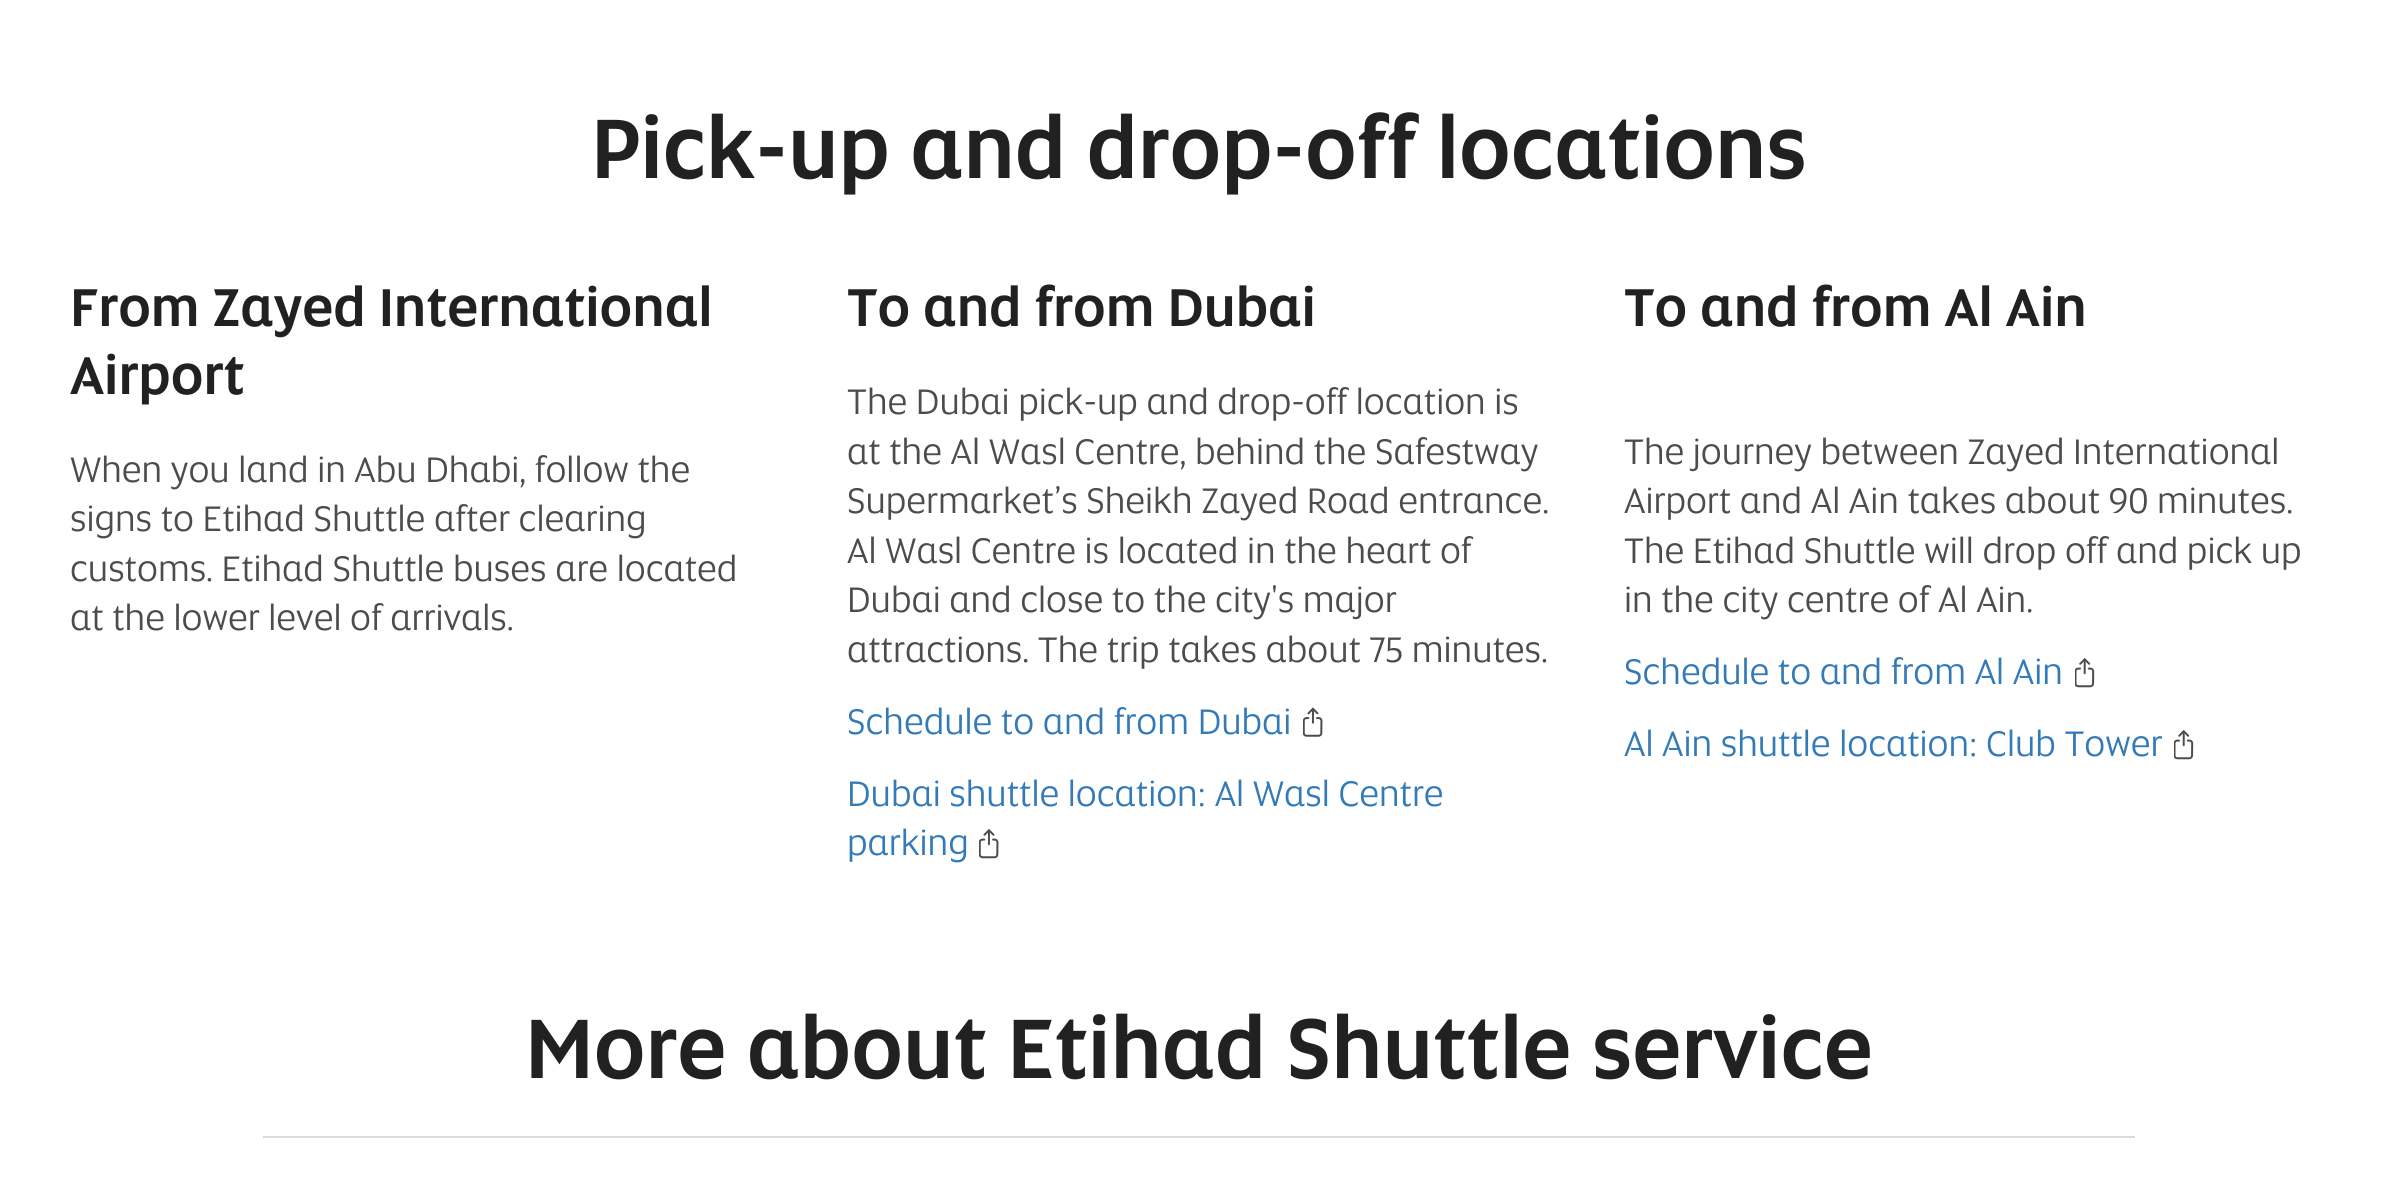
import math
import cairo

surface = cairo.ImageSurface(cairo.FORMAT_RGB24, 2398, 1194)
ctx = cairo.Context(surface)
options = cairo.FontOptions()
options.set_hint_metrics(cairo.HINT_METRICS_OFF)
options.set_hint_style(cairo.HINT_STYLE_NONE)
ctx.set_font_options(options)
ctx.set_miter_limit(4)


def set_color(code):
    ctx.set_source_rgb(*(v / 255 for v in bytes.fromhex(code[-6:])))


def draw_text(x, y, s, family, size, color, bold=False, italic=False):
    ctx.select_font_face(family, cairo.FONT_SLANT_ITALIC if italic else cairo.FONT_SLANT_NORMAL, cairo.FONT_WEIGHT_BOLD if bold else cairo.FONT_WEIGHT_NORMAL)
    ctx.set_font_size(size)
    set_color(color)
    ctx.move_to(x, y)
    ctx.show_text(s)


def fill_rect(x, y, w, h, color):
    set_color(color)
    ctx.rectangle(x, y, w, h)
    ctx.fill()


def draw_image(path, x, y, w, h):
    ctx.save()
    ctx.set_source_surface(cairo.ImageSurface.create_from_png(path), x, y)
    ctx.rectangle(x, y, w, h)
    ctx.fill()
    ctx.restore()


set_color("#ffffff")
ctx.paint()
draw_text(591, 178, "Pick-up and drop-off locations", "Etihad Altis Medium", 85.5, "#212121")
draw_text(70, 326, "From Zayed International", "Etihad Altis Medium", 54, "#212121")
draw_text(70, 394, "Airport", "Etihad Altis Medium", 54, "#212121")
draw_text(70, 482, "When you land in Abu Dhabi, follow the", "Etihad Altis", 36, "#4e4c4a")
draw_text(70, 531, "signs to Etihad Shuttle after clearing", "Etihad Altis", 36, "#4e4c4a")
draw_text(70, 581, "customs. Etihad Shuttle buses are located", "Etihad Altis", 36, "#4e4c4a")
draw_text(70, 630, "at the lower level of arrivals.", "Etihad Altis", 36, "#4e4c4a")
draw_text(847, 326, "To and from Dubai", "Etihad Altis Medium", 54, "#212121")
draw_text(847, 414, "The Dubai pick-up and drop-off location is", "Etihad Altis", 36, "#4e4c4a")
draw_text(847, 464, "at the Al Wasl Centre, behind the Safestway", "Etihad Altis", 36, "#4e4c4a")
draw_text(847, 513, "Supermarket’s Sheikh Zayed Road entrance.", "Etihad Altis", 36, "#4e4c4a")
draw_text(847, 563, "Al Wasl Centre is located in the heart of", "Etihad Altis", 36, "#4e4c4a")
draw_text(847, 612, "Dubai and close to the city's major", "Etihad Altis", 36, "#4e4c4a")
draw_text(847, 662, "attractions. The trip takes about 75 minutes.", "Etihad Altis", 36, "#4e4c4a")
draw_text(847, 734, "Schedule to and from Dubai", "Etihad Altis", 36, "#337ab7")
draw_image("assets/img1.png", 1303, 707, 20, 30)
draw_text(847, 806, "Dubai shuttle location: Al Wasl Centre", "Etihad Altis", 36, "#337ab7")
draw_text(847, 855, "parking", "Etihad Altis", 36, "#337ab7")
draw_image("assets/img2.png", 979, 829, 20, 30)
draw_text(1624, 326, "To and from Al Ain", "Etihad Altis Medium", 54, "#212121")
draw_text(1624, 464, "The journey between Zayed International", "Etihad Altis", 36, "#4e4c4a")
draw_text(1624, 513, "Airport and Al Ain takes about 90 minutes.", "Etihad Altis", 36, "#4e4c4a")
draw_text(1624, 563, "The Etihad Shuttle will drop off and pick up", "Etihad Altis", 36, "#4e4c4a")
draw_text(1624, 612, "in the city centre of Al Ain.", "Etihad Altis", 36, "#4e4c4a")
draw_text(1624, 684, "Schedule to and from Al Ain", "Etihad Altis", 36, "#337ab7")
draw_image("assets/img3.png", 2075, 657, 20, 31)
draw_text(1624, 756, "Al Ain shuttle location: Club Tower", "Etihad Altis", 36, "#337ab7")
draw_image("assets/img3.png", 2174, 729, 20, 31)
draw_text(525, 1078, "More about Etihad Shuttle service", "Etihad Altis Medium", 85.5, "#212121")
fill_rect(263, 1136, 1872, 2, "#dcdbdb")
surface.write_to_png("output.png")
